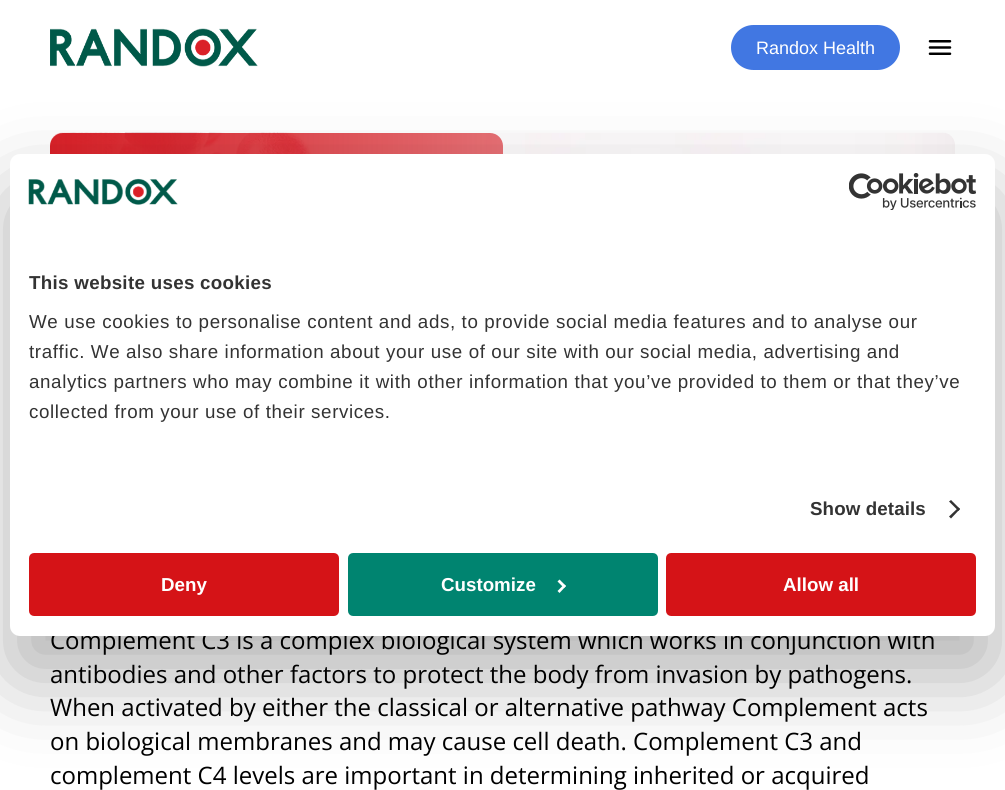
import math
import cairo

surface = cairo.ImageSurface(cairo.FORMAT_RGB24, 1005, 790)
ctx = cairo.Context(surface)
options = cairo.FontOptions()
options.set_hint_metrics(cairo.HINT_METRICS_OFF)
options.set_hint_style(cairo.HINT_STYLE_NONE)
ctx.set_font_options(options)
ctx.set_miter_limit(4)


def set_color(code):
    ctx.set_source_rgb(*(v / 255 for v in bytes.fromhex(code[-6:])))


def draw_text(x, y, s, family, size, color, bold=False, italic=False):
    ctx.select_font_face(family, cairo.FONT_SLANT_ITALIC if italic else cairo.FONT_SLANT_NORMAL, cairo.FONT_WEIGHT_BOLD if bold else cairo.FONT_WEIGHT_NORMAL)
    ctx.set_font_size(size)
    set_color(color)
    ctx.move_to(x, y)
    ctx.show_text(s)


def draw_spaced(x, y, s, letter, word):
    ctx.move_to(x, y)
    for ch in s:
        ctx.show_text(ch)
        ctx.rel_move_to(letter + word * (ch == ' '), 0)


def rounded_rect(x, y, w, h, r):
    ctx.new_sub_path()
    for i, (u, v) in enumerate([(x + w - r, y + h - r), (x + r, y + h - r), (x + r, y + r), (x + w - r, y + r)]):
        ctx.arc(u, v, r, i * math.pi / 2, (i + 1) * math.pi / 2)
    ctx.close_path()


def draw_shadow(x, y, w, h, r, blur, alpha):
    ctx.push_group_with_content(cairo.CONTENT_ALPHA)
    ctx.set_operator(cairo.OPERATOR_SOURCE)
    for i in range(15, -16, -2):
        e = blur * i / 6
        if min(w, h) + 2 * e > 0:
            ctx.set_source_rgba(0, 0, 0, alpha * math.erfc((i - 1) / 8.5) / 2)
            rounded_rect(x - e, y - e, w + 2 * e, h + 2 * e, max(0, min(r + e + blur * .6, min(w, h) / 2 + e)))
            ctx.fill()
    ctx.mask(ctx.pop_group())


def draw_image(path, x, y, w, h):
    ctx.save()
    ctx.set_source_surface(cairo.ImageSurface.create_from_png(path), x, y)
    ctx.rectangle(x, y, w, h)
    ctx.fill()
    ctx.restore()


set_color("#ffffff")
ctx.paint()
draw_image("assets/img1.png", 50, 28, 208, 39)
set_color("#4177e2")
rounded_rect(731, 25, 169, 45, 22.5)
ctx.fill()
draw_text(756, 54, "Randox Health", "Liberation Sans", 18, "#ffffff")
draw_image("assets/img2.png", 928, 40, 24, 15)
draw_image("assets/img3.png", 50, 132, 905, 22)
gradient = cairo.LinearGradient(50, 320, 503, 320)
gradient.add_color_stop_rgba(0, 0.855, 0.129, 0.157, 1)
gradient.add_color_stop_rgba(1, 0.855, 0.129, 0.157, 0.64)
ctx.set_source(gradient)
rounded_rect(50, 133, 453, 375, 13)
ctx.fill()
draw_text(50, 649, "Complement C3 is a complex biological system which works in conjunction with", "Open Sans", 24, "#000000")
draw_text(50, 683, "antibodies and other factors to protect the body from invasion by pathogens.", "Open Sans", 24, "#000000")
draw_text(50, 716, "When activated by either the classical or alternative pathway Complement acts", "Open Sans", 24, "#000000")
draw_text(50, 750, "on biological membranes and may cause cell death. Complement C3 and", "Open Sans", 24, "#000000")
draw_text(50, 784, "complement C4 levels are important in determining inherited or acquired", "Open Sans", 24, "#000000")
set_color("#000000")
draw_shadow(10, 194, 985, 482, 10, 42.5, 0.3)
set_color("#ffffff")
rounded_rect(10, 154, 985, 482, 10)
ctx.fill()
draw_image("assets/img4.png", 28, 178, 150, 27)
draw_image("assets/img5.png", 849, 173, 127, 37)
ctx.select_font_face("Liberation Sans", cairo.FONT_SLANT_NORMAL, cairo.FONT_WEIGHT_BOLD)
ctx.set_font_size(18.75)
set_color("#333333")
draw_spaced(29, 289, "This website uses cookies", 0.3, 0)
ctx.select_font_face("Liberation Sans")
draw_spaced(29, 328, "We use cookies to personalise content and ads, to provide social media features and to analyse our", 0.62, 0)
draw_spaced(29, 358, "traffic. We also share information about your use of our site with our social media, advertising and", 0.62, 0)
draw_spaced(29, 388, "analytics partners who may combine it with other information that you’ve provided to them or that they’ve", 0.62, 0)
draw_spaced(29, 418, "collected from your use of their services.", 0.62, 0)
ctx.select_font_face("Liberation Sans", cairo.FONT_SLANT_NORMAL, cairo.FONT_WEIGHT_BOLD)
draw_spaced(810, 515, "Show details", 0.1, 0)
ctx.new_path()
ctx.move_to(951, 500)
ctx.line_to(960, 509)
ctx.line_to(958.5, 511)
ctx.line_to(949, 501.5)
ctx.close_path()
ctx.fill()
ctx.new_path()
ctx.move_to(958.5, 507.5)
ctx.line_to(960, 509)
ctx.line_to(951, 518.5)
ctx.line_to(949, 516.5)
ctx.close_path()
ctx.fill()
set_color("#d51317")
rounded_rect(30.5, 554.5, 307, 60, 3.5)
ctx.fill_preserve()
ctx.set_line_width(3)
ctx.stroke()
draw_text(161, 591, "Deny", "Liberation Sans", 18.75, "#ffffff", bold=True)
set_color("#008470")
rounded_rect(349.5, 554.5, 307, 60, 3.5)
ctx.fill_preserve()
ctx.stroke()
draw_text(441, 591, "Customize", "Liberation Sans", 18.75, "#ffffff", bold=True)
ctx.new_path()
ctx.move_to(559.5, 579.5)
ctx.line_to(566, 586)
ctx.line_to(564, 588)
ctx.line_to(557.5, 581.5)
ctx.close_path()
ctx.fill()
ctx.new_path()
ctx.move_to(564, 584.5)
ctx.line_to(566, 586)
ctx.line_to(559.5, 593)
ctx.line_to(557.5, 591)
ctx.close_path()
ctx.fill()
set_color("#d51317")
rounded_rect(667.5, 554.5, 307, 60, 3.5)
ctx.fill_preserve()
ctx.stroke()
draw_text(783, 591, "Allow all", "Liberation Sans", 18.75, "#ffffff", bold=True)
surface.write_to_png("output.png")
